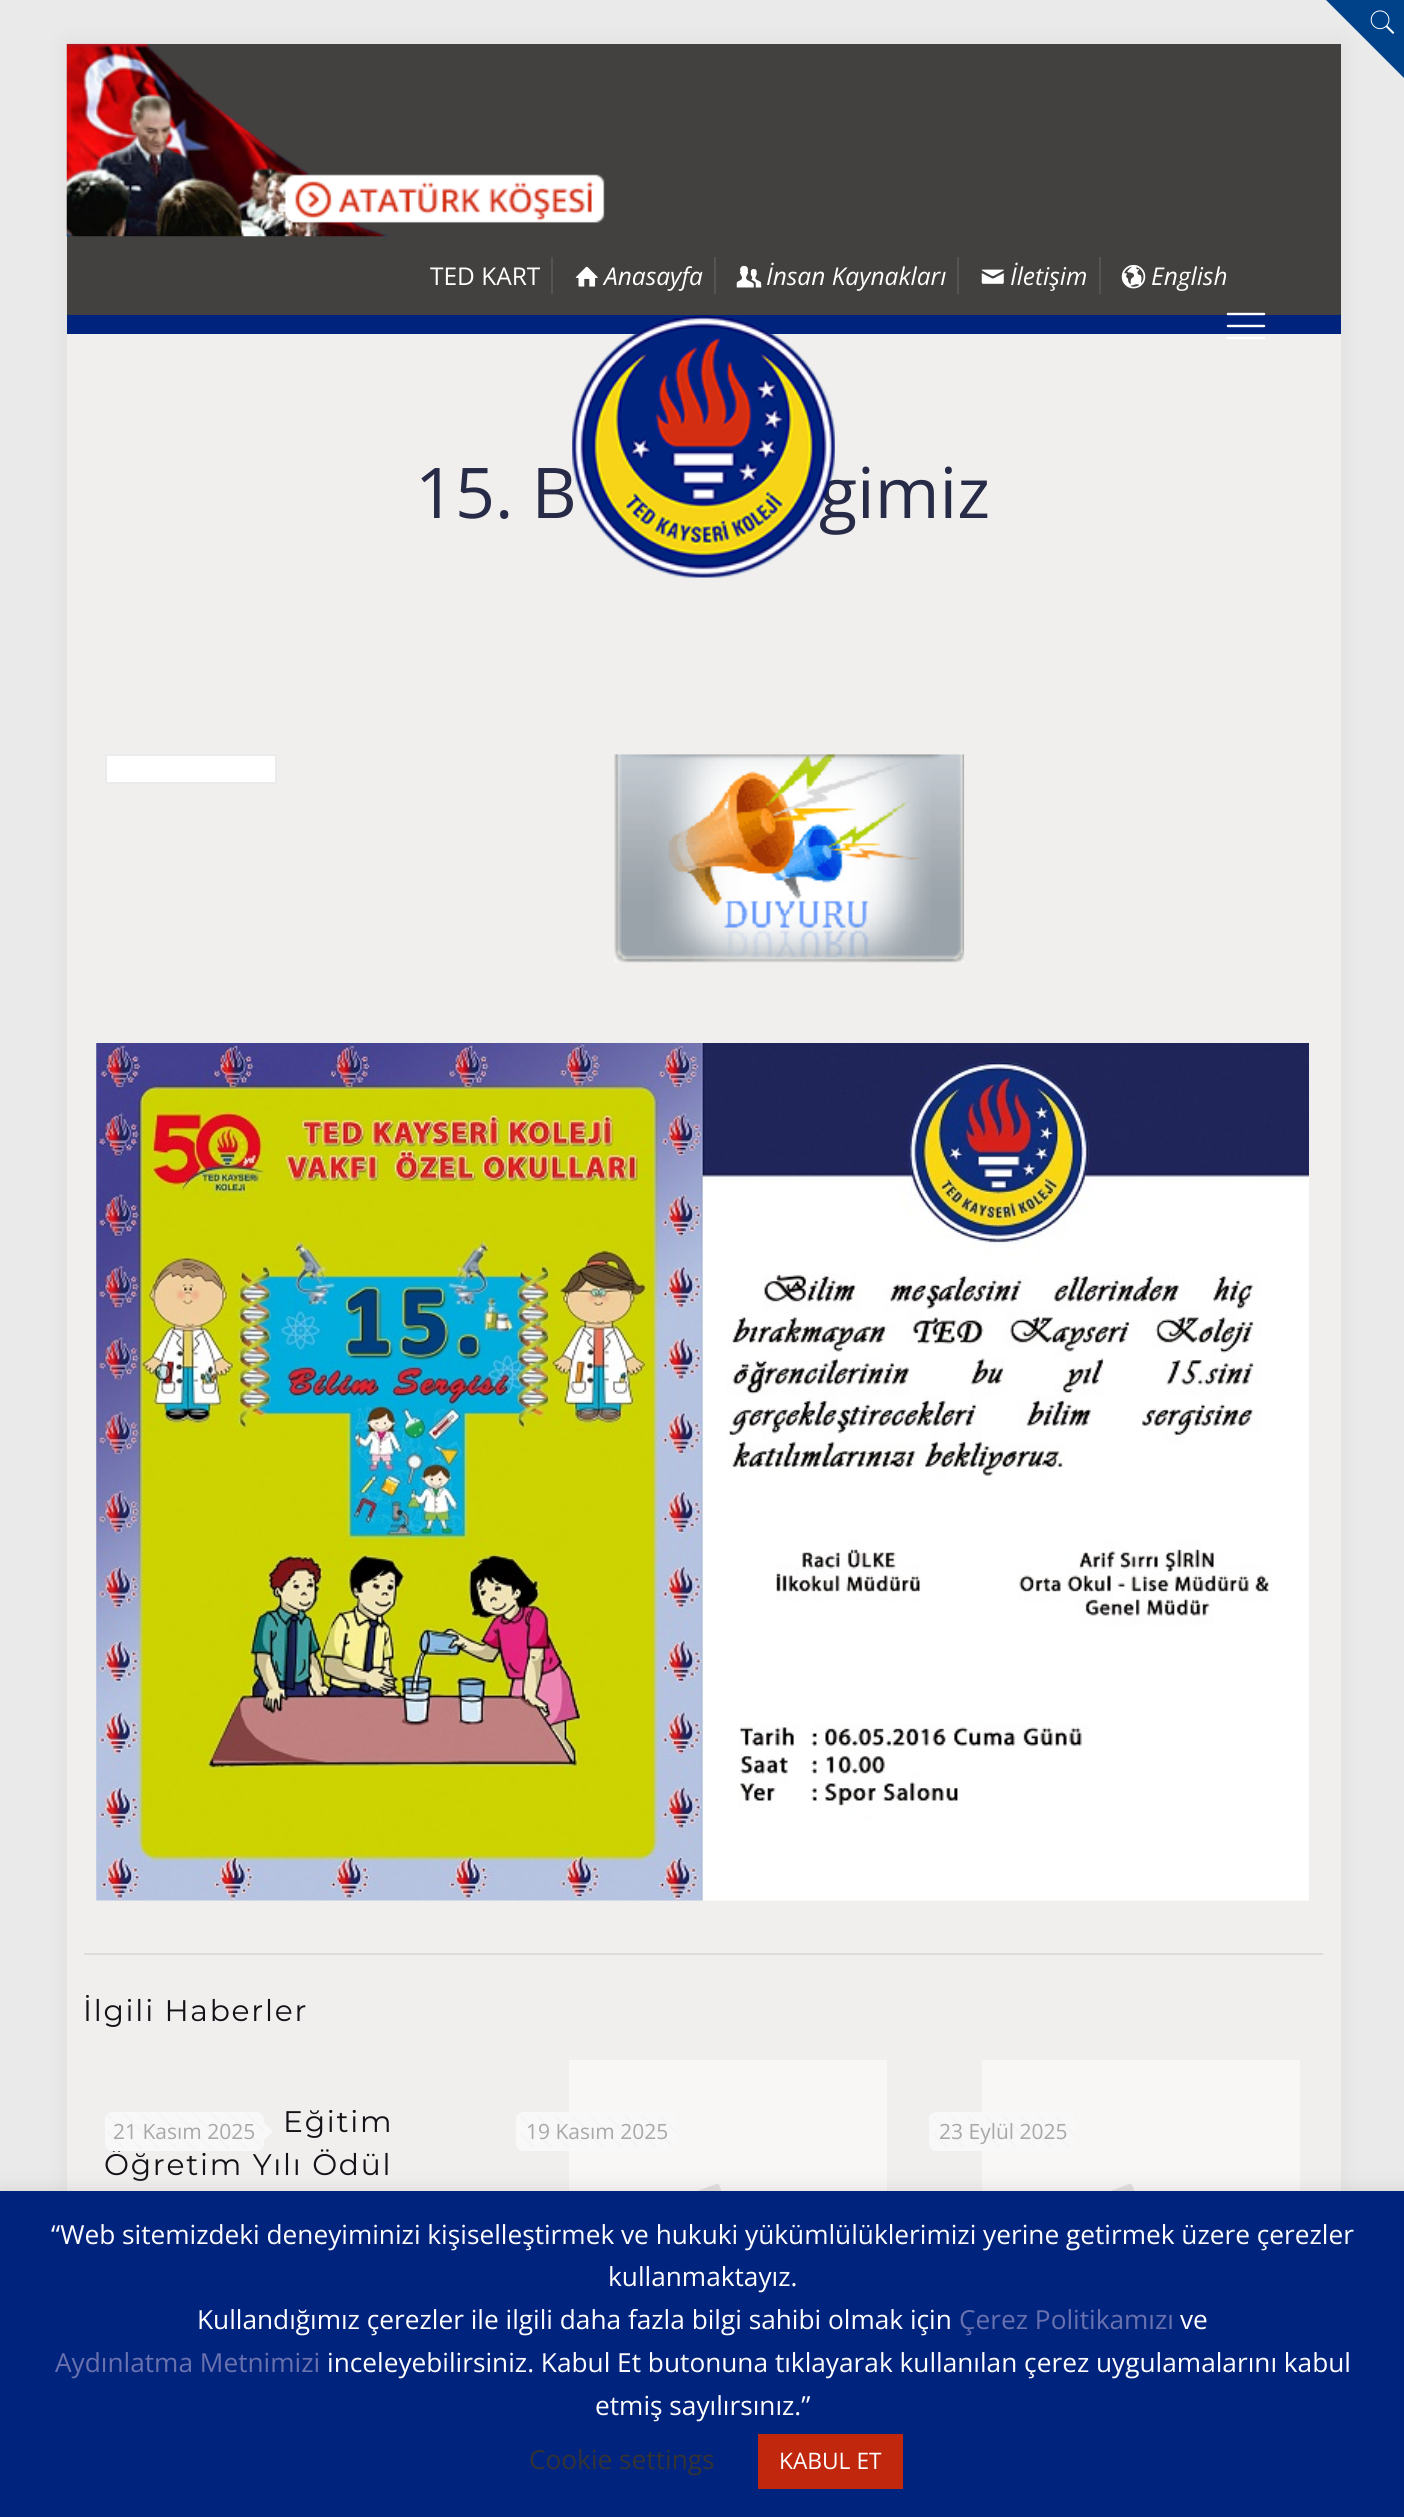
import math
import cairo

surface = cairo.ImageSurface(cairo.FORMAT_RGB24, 1404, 2517)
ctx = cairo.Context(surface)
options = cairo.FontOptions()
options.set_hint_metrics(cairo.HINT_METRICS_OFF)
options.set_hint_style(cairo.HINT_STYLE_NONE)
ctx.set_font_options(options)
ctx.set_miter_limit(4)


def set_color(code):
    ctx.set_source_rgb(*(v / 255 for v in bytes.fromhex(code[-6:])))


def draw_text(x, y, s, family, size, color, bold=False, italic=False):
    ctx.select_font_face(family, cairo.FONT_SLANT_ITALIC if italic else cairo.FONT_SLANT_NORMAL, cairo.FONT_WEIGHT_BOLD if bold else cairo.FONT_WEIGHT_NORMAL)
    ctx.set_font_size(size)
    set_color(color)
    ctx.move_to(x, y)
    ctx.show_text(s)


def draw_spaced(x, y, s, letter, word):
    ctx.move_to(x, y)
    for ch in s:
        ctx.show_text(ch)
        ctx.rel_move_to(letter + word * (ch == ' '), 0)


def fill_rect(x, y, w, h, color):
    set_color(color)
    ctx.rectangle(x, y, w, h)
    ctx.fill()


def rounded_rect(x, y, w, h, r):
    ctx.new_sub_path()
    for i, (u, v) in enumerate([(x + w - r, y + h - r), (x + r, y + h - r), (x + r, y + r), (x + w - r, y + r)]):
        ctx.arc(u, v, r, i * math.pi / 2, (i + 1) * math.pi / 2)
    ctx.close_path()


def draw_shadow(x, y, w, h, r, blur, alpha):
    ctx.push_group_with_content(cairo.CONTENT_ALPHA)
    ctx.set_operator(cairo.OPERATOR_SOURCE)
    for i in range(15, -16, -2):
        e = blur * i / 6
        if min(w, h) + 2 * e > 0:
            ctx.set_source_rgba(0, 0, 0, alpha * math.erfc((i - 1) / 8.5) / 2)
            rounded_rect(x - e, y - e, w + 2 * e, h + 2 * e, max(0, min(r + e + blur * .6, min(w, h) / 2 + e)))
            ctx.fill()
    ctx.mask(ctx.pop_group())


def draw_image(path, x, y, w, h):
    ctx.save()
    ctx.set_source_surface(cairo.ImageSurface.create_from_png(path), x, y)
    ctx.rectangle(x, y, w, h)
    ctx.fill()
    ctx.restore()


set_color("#eaeaea")
ctx.paint()
set_color("#000000")
draw_shadow(67, 44, 1274, 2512, 0, 13, 0.06)
fill_rect(67, 44, 1274, 271, "#42413f")
set_color("#004289")
ctx.new_path()
ctx.move_to(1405, 0)
ctx.line_to(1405, 79)
ctx.line_to(1326, 0)
ctx.close_path()
ctx.fill()
draw_image("assets/img1.png", 1370, 10, 25, 24)
fill_rect(67, 334, 1274, 1857, "#f0efed")
draw_image("assets/img2.png", 66, 43, 539, 194)
fill_rect(551, 257, 2, 37, "#555452")
draw_text(430, 285, "TED KART", "Open Sans", 24.5, "#ffffff")
fill_rect(714, 257, 2, 37, "#555452")
draw_image("assets/img3.png", 575, 266, 23, 21)
draw_text(604, 285, "Anasayfa", "Open Sans", 24.5, "#ffffff", italic=True)
fill_rect(957, 257, 2, 37, "#555452")
draw_image("assets/img4.png", 736, 265, 26, 23)
draw_text(766, 285, "İnsan Kaynakları", "Open Sans", 24.5, "#ffffff", italic=True)
fill_rect(1099, 257, 2, 37, "#555452")
draw_image("assets/img5.png", 981, 269, 23, 15)
draw_text(1010, 285, "İletişim", "Open Sans", 24.5, "#ffffff", italic=True)
draw_image("assets/img6.png", 1121, 264, 25, 25)
draw_text(1151, 285, "English", "Open Sans", 24.5, "#ffffff", italic=True)
fill_rect(67, 315, 1274, 19, "#00237e")
draw_text(415, 518, "15. B", "Open Sans", 70, "#272b47")
draw_text(819, 518, "gimiz", "Open Sans", 70, "#272b47")
draw_image("assets/img7.png", 572, 315, 263, 263)
draw_image("assets/img8.png", 1226, 312, 40, 28)
set_color("#ffffff")
ctx.rectangle(106, 755, 170, 28)
ctx.fill_preserve()
set_color("#ebebeb")
ctx.stroke()
draw_image("assets/img9.png", 614, 754, 351, 209)
draw_image("assets/img10.png", 96, 1043, 1213, 858)
fill_rect(84, 1953, 1239, 2, "#dddcda")
ctx.select_font_face("Montserrat")
ctx.set_font_size(29.75)
set_color("#121217")
draw_spaced(83, 2021, "İlgili Haberler", 1.75, 0)
draw_spaced(283, 2132, "Eğitim", 1.75, 0)
draw_spaced(104, 2175, "Öğretim Yılı Ödül", 1.75, 0)
set_color("#f8f8f8")
rounded_rect(105, 2112, 159, 39, 7)
ctx.fill()
draw_image("assets/img11.png", 107, 2113, 157, 36)
draw_text(113, 2139, "21 Kasım 2025", "Open Sans", 21, "#a8a8a8")
set_color("#f8f8f8")
ctx.new_path()
ctx.move_to(264, 2140)
ctx.line_to(264, 2123)
ctx.line_to(273, 2131.5)
ctx.close_path()
ctx.fill()
fill_rect(569, 2060, 318, 131, "#f8f7f6")
draw_image("assets/img12.png", 698, 2184, 24, 7)
set_color("#f8f8f8")
rounded_rect(516, 2112, 161, 39, 7)
ctx.fill()
draw_image("assets/img13.png", 520, 2116, 157, 31)
draw_text(526, 2139, "19 Kasım 2025", "Open Sans", 21, "#a8a8a8")
fill_rect(982, 2060, 318, 131, "#f8f7f6")
draw_image("assets/img12.png", 1111, 2184, 24, 7)
set_color("#f8f8f8")
rounded_rect(929, 2112, 147, 39, 7)
ctx.fill()
draw_image("assets/img14.png", 933, 2116, 143, 31)
draw_text(939, 2139, "23 Eylül 2025", "Open Sans", 21, "#a8a8a8")
set_color("#acabab")
draw_shadow(0, 2189, 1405, 328, 0, 9, 0.3)
fill_rect(0, 2191, 1404, 326, "#00237e")
draw_text(51, 2244, "“Web sitemizdeki deneyiminizi kişiselleştirmek ve hukuki yükümlülüklerimizi yerine getirmek üzere çerezler", "Open Sans", 26.25, "#ffffff")
draw_text(608, 2286, "kullanmaktayız.", "Open Sans", 26.25, "#ffffff")
draw_text(197, 2329, "Kullandığımız çerezler ile ilgili daha fazla bilgi sahibi olmak için", "Open Sans", 26.25, "#ffffff")
draw_text(959, 2329, "Çerez Politikamızı", "Open Sans", 26.25, "#6971ae")
draw_text(1180, 2329, "ve", "Open Sans", 26.25, "#ffffff")
draw_text(55, 2372, "Aydınlatma Metnimizi", "Open Sans", 26.25, "#6971ae")
draw_text(327, 2372, "inceleyebilirsiniz. Kabul Et butonuna tıklayarak kullanılan çerez uygulamalarını kabul", "Open Sans", 26.25, "#ffffff")
draw_text(595, 2415, "etmiş sayılırsınız.”", "Open Sans", 26.25, "#ffffff")
draw_text(529, 2469, "Cookie settings", "Open Sans", 26.25, "#333333")
fill_rect(758, 2434, 145, 55, "#c0270d")
draw_text(779, 2469, "KABUL ET", "Open Sans", 22.75, "#ffffff")
surface.write_to_png("output.png")
